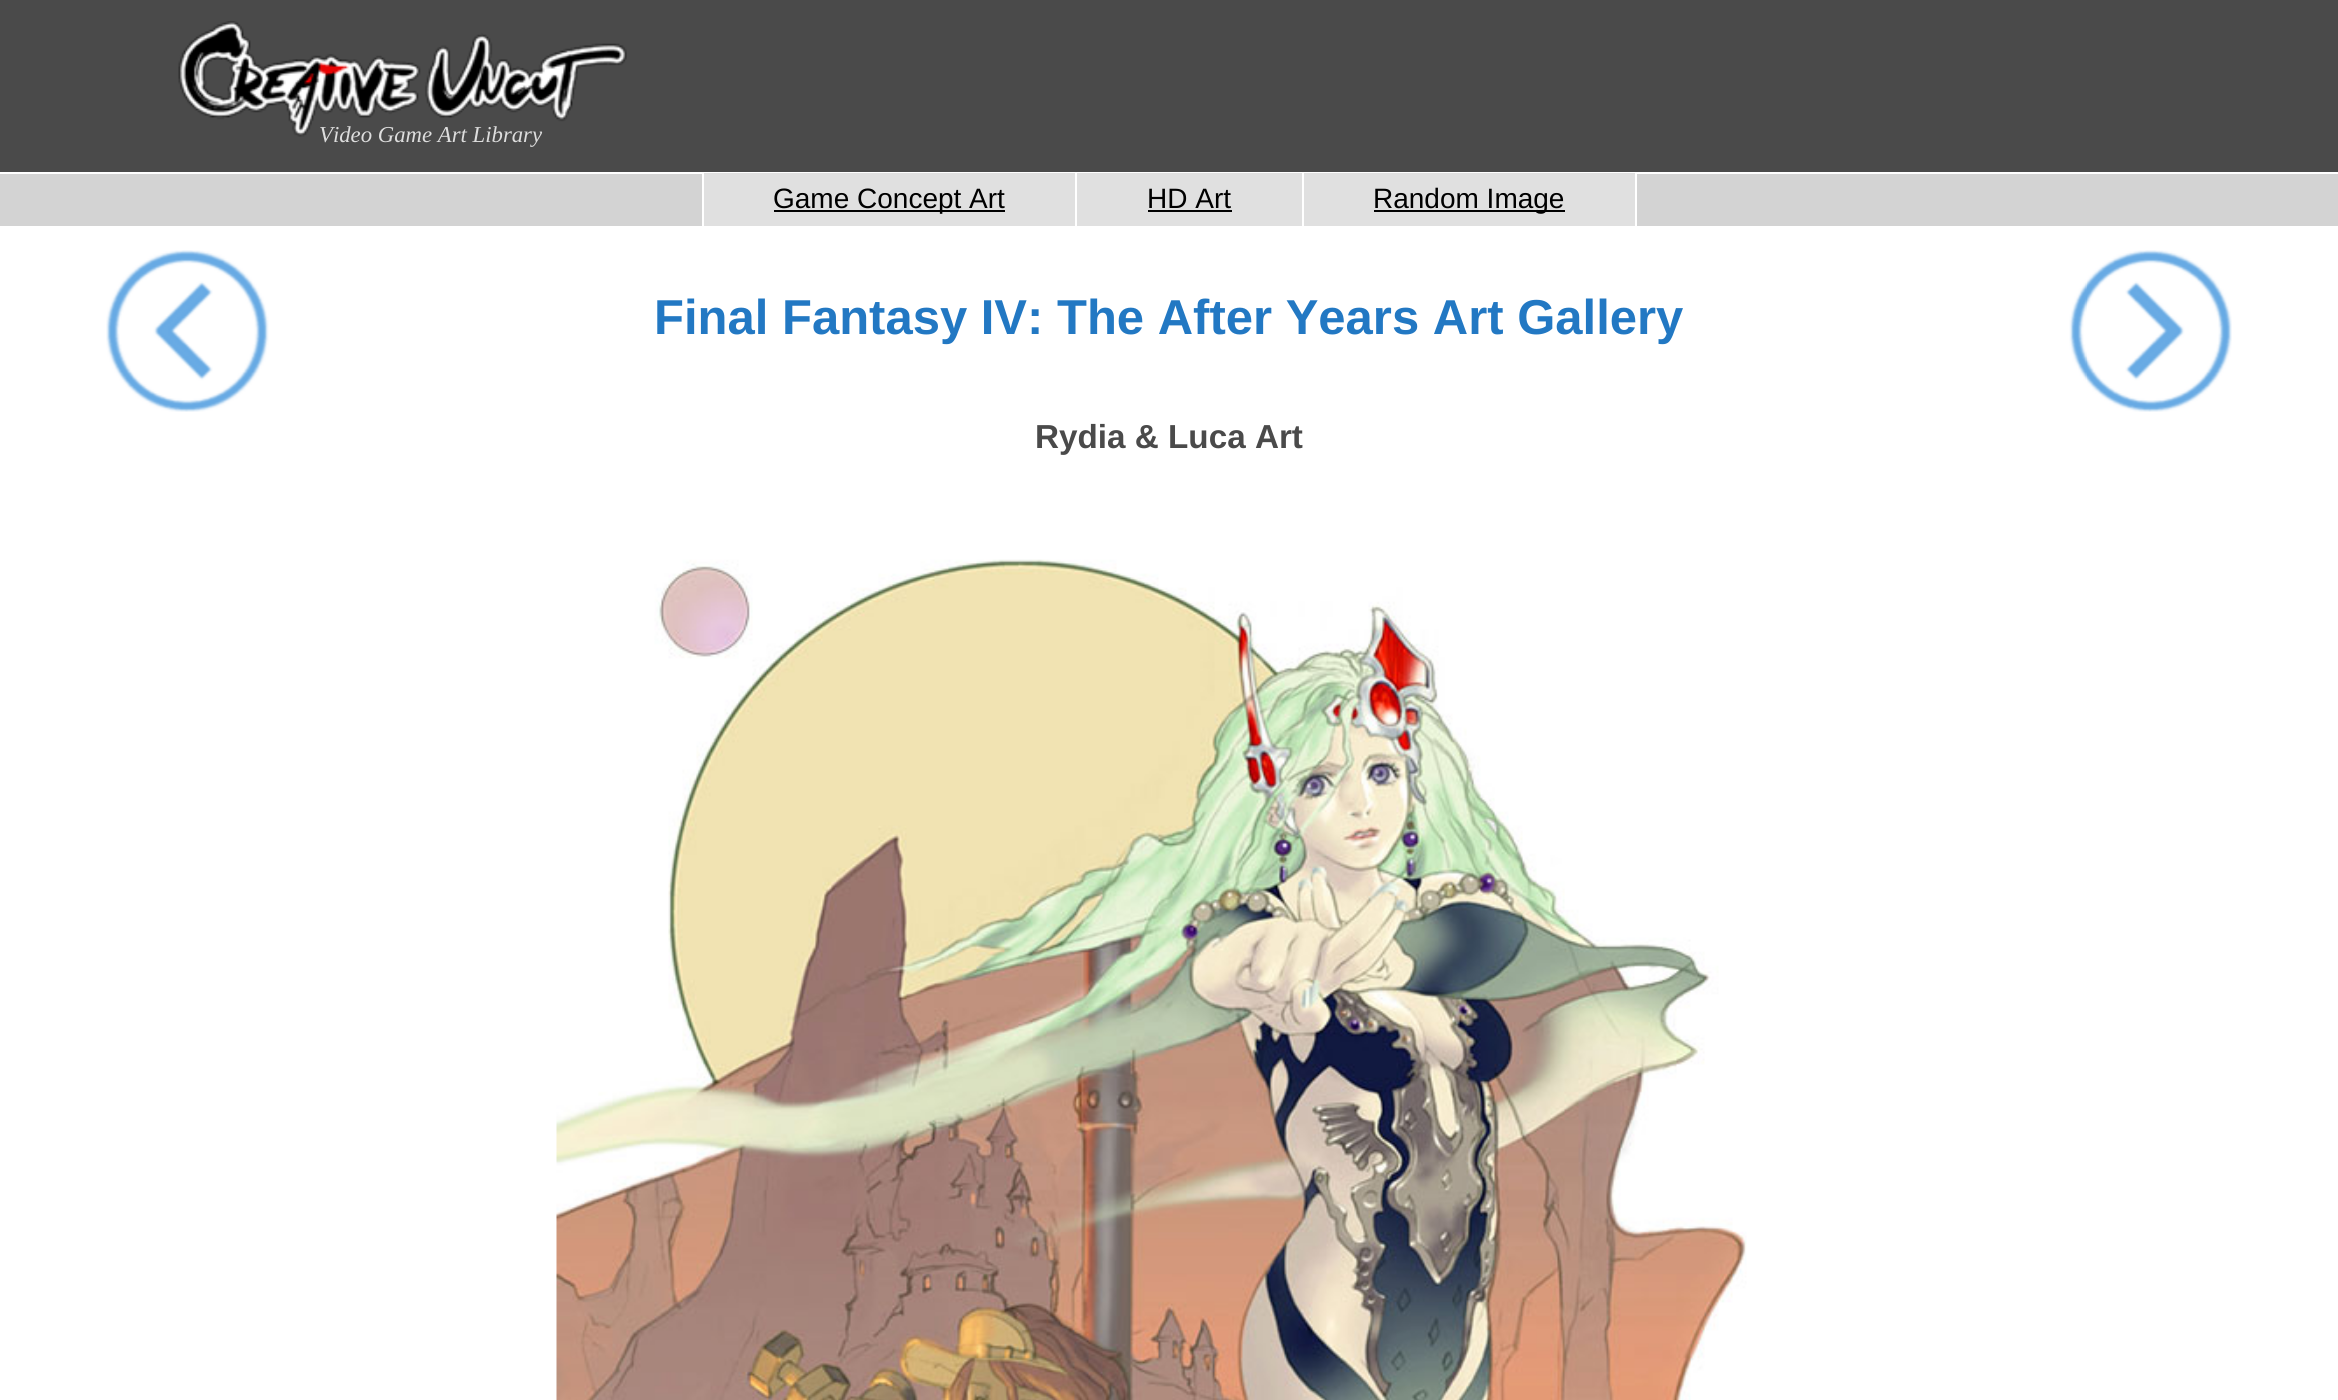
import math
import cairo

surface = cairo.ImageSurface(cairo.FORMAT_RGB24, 2338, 1400)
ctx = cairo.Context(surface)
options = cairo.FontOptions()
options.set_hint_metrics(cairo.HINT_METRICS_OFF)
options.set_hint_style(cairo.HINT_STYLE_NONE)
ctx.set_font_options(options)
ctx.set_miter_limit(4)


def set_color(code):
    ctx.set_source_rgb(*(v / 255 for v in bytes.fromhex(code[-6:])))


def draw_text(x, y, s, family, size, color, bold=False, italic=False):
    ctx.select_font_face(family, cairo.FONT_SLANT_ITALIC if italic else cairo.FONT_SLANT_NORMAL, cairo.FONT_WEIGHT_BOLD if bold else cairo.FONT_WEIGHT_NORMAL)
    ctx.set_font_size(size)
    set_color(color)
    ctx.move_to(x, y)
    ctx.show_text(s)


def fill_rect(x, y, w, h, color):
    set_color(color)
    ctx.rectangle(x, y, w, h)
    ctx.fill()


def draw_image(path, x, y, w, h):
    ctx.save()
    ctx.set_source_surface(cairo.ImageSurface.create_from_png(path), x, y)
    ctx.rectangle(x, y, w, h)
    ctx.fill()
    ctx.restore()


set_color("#ffffff")
ctx.paint()
fill_rect(0, 0, 2338, 172, "#4a4a4a")
draw_image("assets/img1.png", 178, 21, 449, 116)
draw_text(319, 142, "Video Game Art Library", "Liberation Serif", 22.75, "#dddddd", italic=True)
fill_rect(0, 174, 2338, 52, "#d3d3d3")
fill_rect(704, 173, 371, 53, "#e0e0e0")
fill_rect(702, 173, 2, 53, "#ffffff")
fill_rect(774, 210, 231, 2, "#000000")
draw_text(773, 208, "Game Concept Art", "Liberation Sans", 28, "#000000")
fill_rect(1077, 173, 225, 53, "#e0e0e0")
fill_rect(1075, 173, 2, 53, "#ffffff")
draw_text(1147, 208, "HD Art", "Liberation Sans", 28, "#000000")
fill_rect(1148, 210, 84, 2, "#000000")
fill_rect(1304, 173, 331, 53, "#e0e0e0")
fill_rect(1635, 173, 2, 53, "#ffffff")
fill_rect(1302, 173, 2, 53, "#ffffff")
fill_rect(1374, 210, 191, 2, "#000000")
draw_text(1373, 208, "Random Image", "Liberation Sans", 28, "#000000")
draw_image("assets/img2.png", 106, 250, 163, 162)
draw_text(654, 334, "Final Fantasy IV: The After Years Art Gallery", "Liberation Sans", 49, "#2278c3", bold=True)
draw_image("assets/img3.png", 2069, 250, 163, 162)
draw_text(1035, 448, "Rydia & Luca Art", "Liberation Sans", 33.25, "#4a4a4a", bold=True)
draw_image("assets/img4.png", 556, 559, 1191, 841)
surface.write_to_png("output.png")
